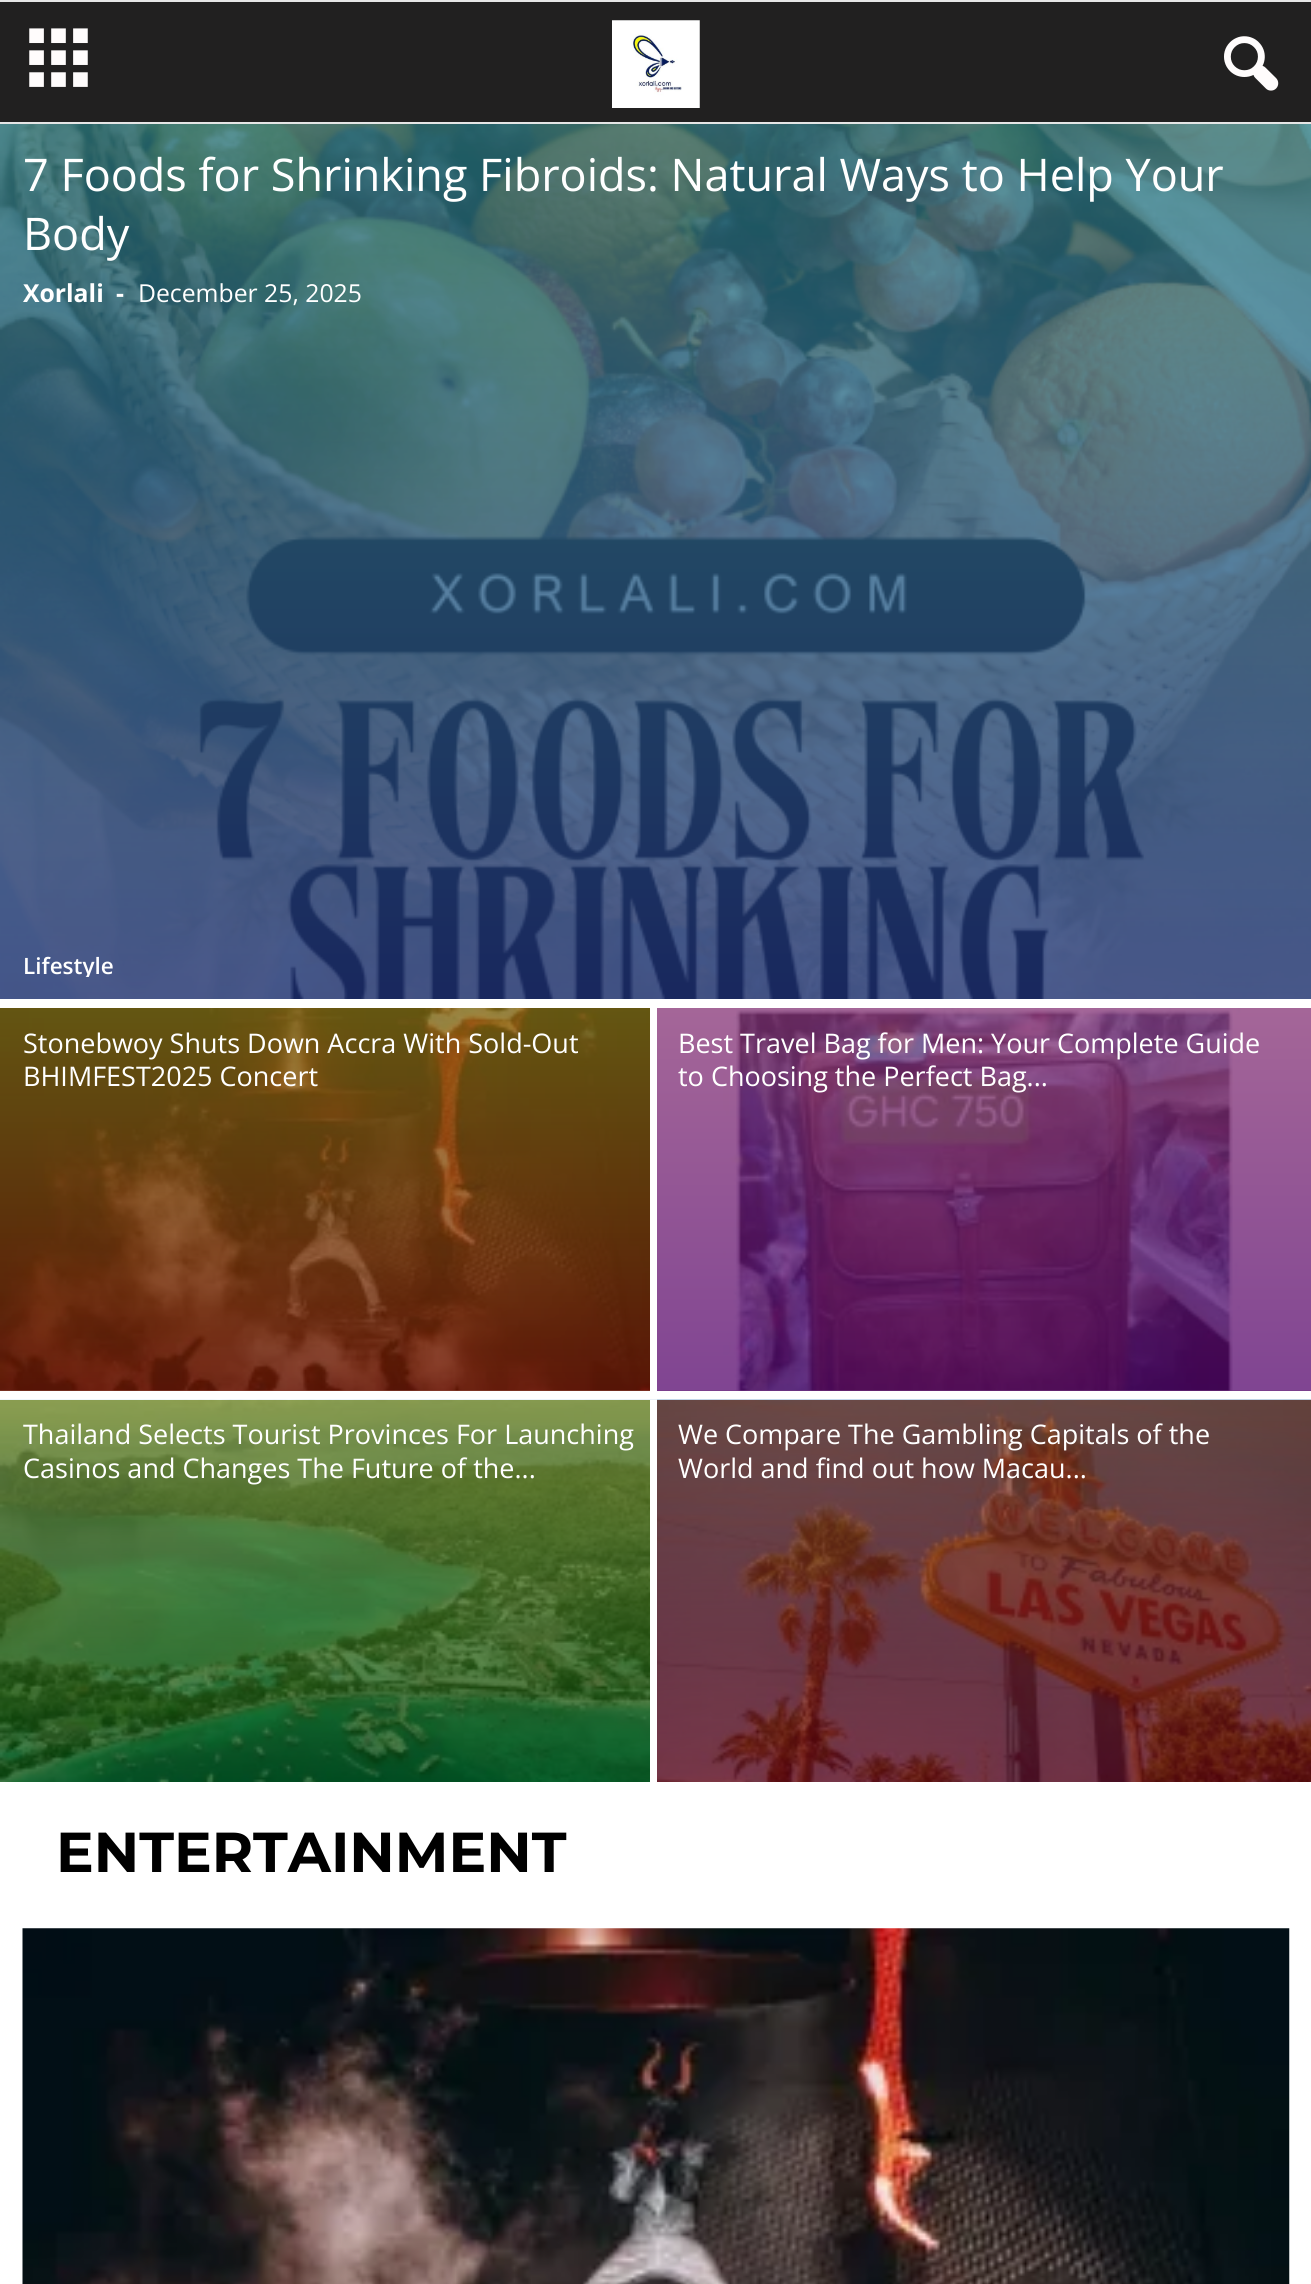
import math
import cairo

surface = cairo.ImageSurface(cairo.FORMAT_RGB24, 1311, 2284)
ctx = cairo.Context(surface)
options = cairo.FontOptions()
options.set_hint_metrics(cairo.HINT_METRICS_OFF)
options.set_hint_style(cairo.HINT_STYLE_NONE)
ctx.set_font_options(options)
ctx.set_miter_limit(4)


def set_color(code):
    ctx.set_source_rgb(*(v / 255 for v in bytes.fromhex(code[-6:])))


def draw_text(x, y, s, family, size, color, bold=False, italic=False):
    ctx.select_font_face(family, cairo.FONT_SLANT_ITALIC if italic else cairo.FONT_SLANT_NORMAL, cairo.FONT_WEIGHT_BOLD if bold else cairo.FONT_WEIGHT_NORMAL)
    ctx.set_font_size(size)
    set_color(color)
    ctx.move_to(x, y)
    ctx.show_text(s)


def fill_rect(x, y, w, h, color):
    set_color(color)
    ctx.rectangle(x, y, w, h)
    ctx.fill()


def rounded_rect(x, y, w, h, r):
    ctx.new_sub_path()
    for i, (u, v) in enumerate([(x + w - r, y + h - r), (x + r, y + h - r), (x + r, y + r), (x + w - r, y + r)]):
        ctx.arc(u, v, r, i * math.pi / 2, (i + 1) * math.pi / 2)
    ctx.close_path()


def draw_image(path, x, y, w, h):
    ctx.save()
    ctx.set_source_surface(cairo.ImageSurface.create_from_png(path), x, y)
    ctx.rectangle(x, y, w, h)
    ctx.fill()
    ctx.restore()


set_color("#ffffff")
ctx.paint()
fill_rect(0, 2, 1311, 120, "#212020")
fill_rect(0, 0, 1311, 2, "#e6e6e6")
fill_rect(0, 122, 1311, 2, "#e6e6e6")
draw_image("assets/img1.png", 29, 28, 59, 59)
draw_image("assets/img2.png", 612, 20, 88, 88)
draw_image("assets/img3.png", 1224, 36, 55, 55)
draw_image("assets/img4.png", 0, 124, 1311, 875)
gradient = cairo.LinearGradient(656, 119, 656, 999)
gradient.add_color_stop_rgba(0, 0.298, 0.941, 1, 0.6)
gradient.add_color_stop_rgba(1, 0.118, 0.325, 0.894, 0.6)
ctx.set_source(gradient)
ctx.rectangle(0, 124, 1311, 875)
ctx.fill()
ctx.set_source_rgba(0, 0, 0, 0.35)
ctx.rectangle(0, 124, 1311, 875)
ctx.fill()
draw_text(23, 191, "7 Foods for Shrinking Fibroids: Natural Ways to Help Your", "Open Sans", 45, "#ffffff")
draw_text(23, 250, "Body", "Open Sans", 45, "#ffffff")
draw_text(23, 302, "Xorlali", "Open Sans", 24.75, "#ffffff", bold=True)
draw_text(116, 302, "-", "Open Sans", 24.75, "#ffffff", bold=True)
draw_text(138, 302, "December 25, 2025", "Open Sans", 24.75, "#ffffff")
ctx.save()
rounded_rect(23, 954, 90, 23, 7)
ctx.clip()
draw_text(23, 974, "Lifestyle", "Open Sans SemiBold", 22.5, "#ffffff")
ctx.restore()
fill_rect(0, 1390, 650, 1, "#858585")
draw_image("assets/img5.png", 0, 1008, 650, 383)
gradient = cairo.LinearGradient(329, 1008, 329, 1391)
gradient.add_color_stop_rgba(0, 0.651, 0.537, 0.078, 0.6)
gradient.add_color_stop_rgba(1, 0.561, 0.106, 0.004, 0.6)
ctx.set_source(gradient)
ctx.rectangle(0, 1008, 650, 383)
ctx.fill()
draw_text(23, 1053, "Stonebwoy Shuts Down Accra With Sold-Out", "Open Sans", 27, "#ffffff")
draw_text(23, 1086, "BHIMFEST2025 Concert", "Open Sans", 27, "#ffffff")
fill_rect(657, 1390, 654, 1, "#858585")
draw_image("assets/img6.png", 657, 1008, 654, 383)
gradient = cairo.LinearGradient(984, 1008, 984, 1391)
gradient.add_color_stop_rgba(0, 0.643, 0.235, 0.561, 0.6)
gradient.add_color_stop_rgba(1, 0.404, 0.016, 0.522, 0.6)
ctx.set_source(gradient)
ctx.rectangle(657, 1008, 654, 383)
ctx.fill()
draw_text(678, 1053, "Best Travel Bag for Men: Your Complete Guide", "Open Sans", 27, "#ffffff")
draw_text(678, 1086, "to Choosing the Perfect Bag...", "Open Sans", 27, "#ffffff")
draw_image("assets/img7.png", 0, 1399, 657, 383)
draw_text(23, 1444, "Thailand Selects Tourist Provinces For Launching", "Open Sans", 27, "#ffffff")
draw_text(23, 1478, "Casinos and Changes The Future of the...", "Open Sans", 27, "#ffffff")
fill_rect(650, 1400, 7, 382, "#ffffff")
draw_image("assets/img8.png", 657, 1399, 654, 383)
draw_text(678, 1444, "We Compare The Gambling Capitals of the", "Open Sans", 27, "#ffffff")
draw_text(678, 1478, "World and find out how Macau...", "Open Sans", 27, "#ffffff")
draw_text(56, 1872, "ENTERTAINMENT", "Montserrat", 56.25, "#000000", bold=True)
draw_image("assets/img9.png", 22, 1928, 1268, 356)
surface.write_to_png("output.png")
